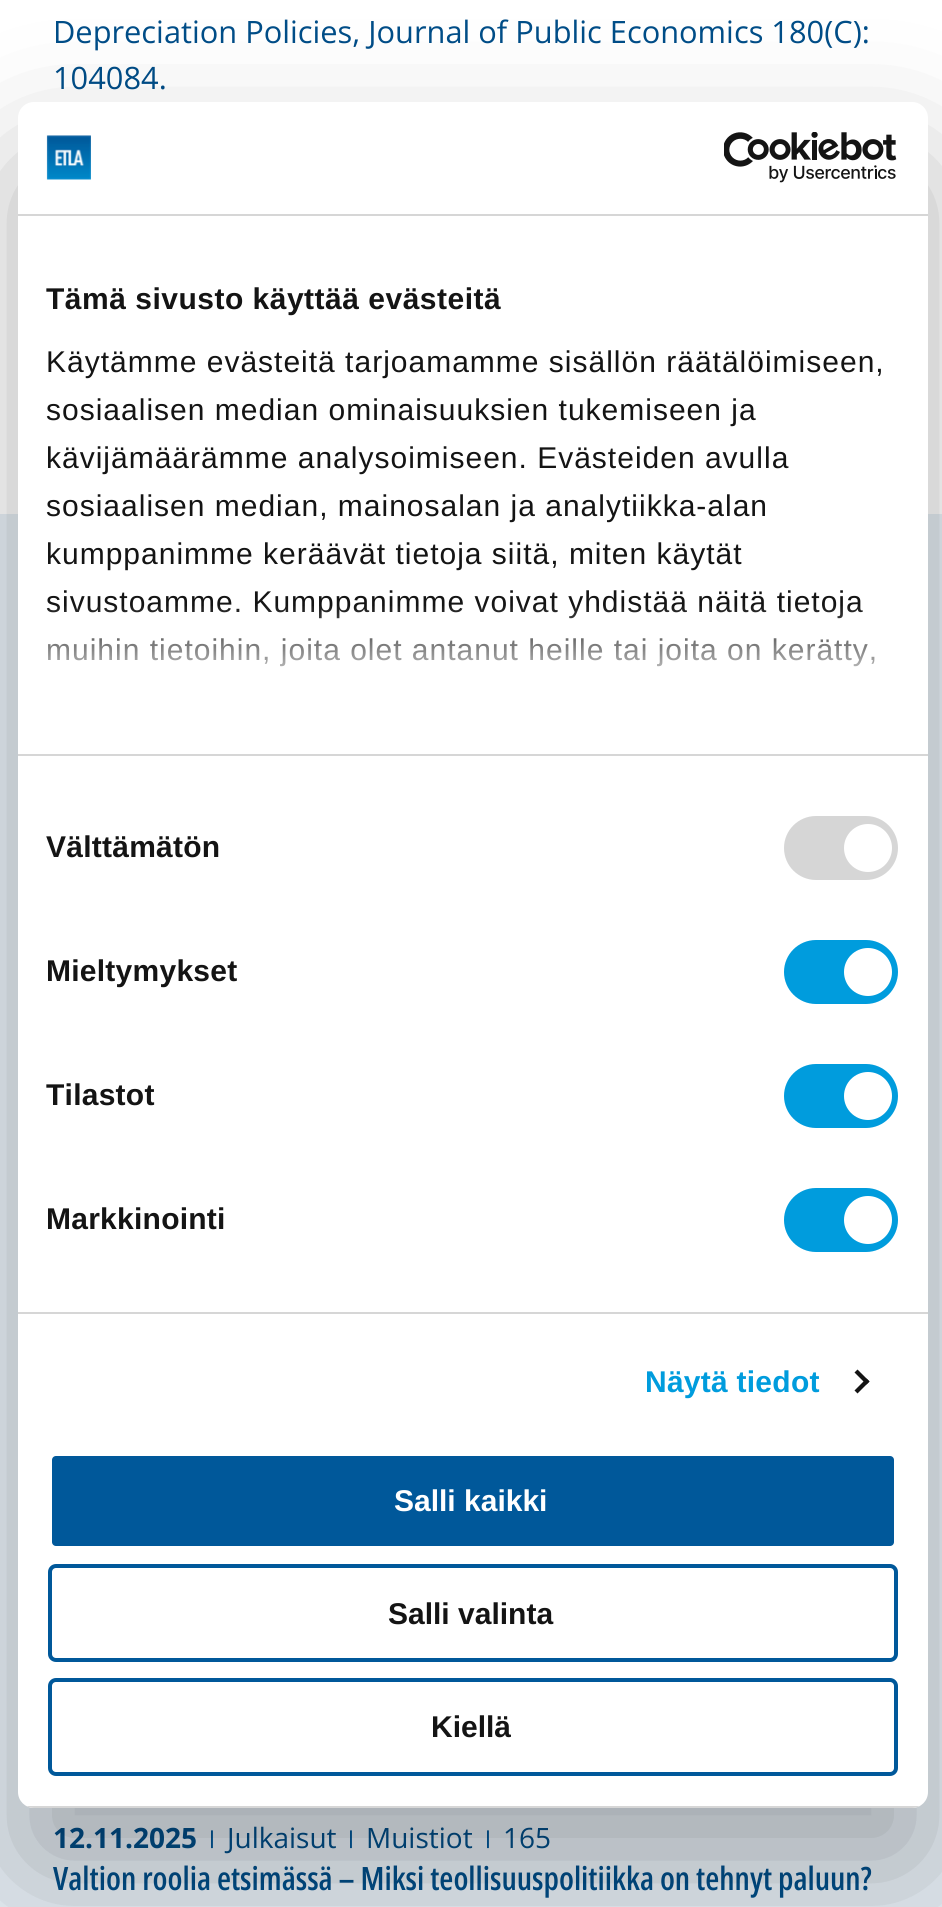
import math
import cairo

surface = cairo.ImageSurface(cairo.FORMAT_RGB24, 942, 1907)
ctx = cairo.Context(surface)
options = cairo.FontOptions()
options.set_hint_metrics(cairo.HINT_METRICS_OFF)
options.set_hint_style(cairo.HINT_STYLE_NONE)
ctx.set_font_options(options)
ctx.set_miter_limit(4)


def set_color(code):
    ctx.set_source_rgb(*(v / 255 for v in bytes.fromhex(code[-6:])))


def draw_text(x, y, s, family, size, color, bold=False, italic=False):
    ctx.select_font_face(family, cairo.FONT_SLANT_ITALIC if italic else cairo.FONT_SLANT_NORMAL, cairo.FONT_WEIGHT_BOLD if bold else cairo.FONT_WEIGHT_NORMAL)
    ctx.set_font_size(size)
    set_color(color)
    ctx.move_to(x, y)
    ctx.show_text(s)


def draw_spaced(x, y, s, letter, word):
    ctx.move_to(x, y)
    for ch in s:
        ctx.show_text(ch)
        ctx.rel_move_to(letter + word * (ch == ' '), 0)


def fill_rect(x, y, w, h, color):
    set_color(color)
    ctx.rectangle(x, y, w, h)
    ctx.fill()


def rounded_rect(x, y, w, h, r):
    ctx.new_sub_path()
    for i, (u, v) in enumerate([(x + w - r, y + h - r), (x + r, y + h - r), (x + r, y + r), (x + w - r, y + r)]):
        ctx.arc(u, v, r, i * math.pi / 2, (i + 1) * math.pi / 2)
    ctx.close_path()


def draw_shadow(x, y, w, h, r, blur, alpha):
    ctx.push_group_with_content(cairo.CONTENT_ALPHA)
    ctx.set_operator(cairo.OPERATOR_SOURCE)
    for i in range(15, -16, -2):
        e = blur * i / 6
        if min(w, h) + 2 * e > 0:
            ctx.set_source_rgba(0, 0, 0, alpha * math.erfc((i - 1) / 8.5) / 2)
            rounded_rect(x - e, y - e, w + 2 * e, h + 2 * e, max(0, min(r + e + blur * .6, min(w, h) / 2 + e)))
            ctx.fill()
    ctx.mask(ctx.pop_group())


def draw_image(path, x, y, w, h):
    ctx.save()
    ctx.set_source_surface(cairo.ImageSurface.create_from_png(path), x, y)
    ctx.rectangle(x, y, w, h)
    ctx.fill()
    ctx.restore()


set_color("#ffffff")
ctx.paint()
draw_text(53, 43, "Depreciation Policies, Journal of Public Economics 180(C):", "Open Sans", 30.8, "#004d88")
draw_text(53, 89, "104084.", "Open Sans", 30.8, "#004d88")
fill_rect(0, 514, 942, 1393, "#e6eef5")
draw_text(53, 1848, "12.11.2025", "Open Sans", 28, "#004d88", bold=True)
draw_text(207, 1844, "|", "Open Sans", 18, "#00589a", bold=True)
draw_text(227, 1848, "Julkaisut", "Open Sans", 28, "#004d88")
draw_text(346, 1844, "|", "Open Sans", 18, "#00589a", bold=True)
draw_text(366, 1848, "Muistiot", "Open Sans", 28, "#004d88")
draw_text(483, 1844, "|", "Open Sans", 18, "#00589a", bold=True)
draw_text(503, 1848, "165", "Open Sans", 28, "#004d88")
draw_text(53, 1890, "Valtion roolia etsimässä – Miksi teollisuuspolitiikka on tehnyt paluun?", "Open Sans SemiBold", 32.2, "#004d88")
set_color("#000000")
draw_shadow(18, 166, 910, 1706, 16, 68, 0.3)
set_color("#ffffff")
rounded_rect(18, 102, 910, 1706, 16)
ctx.fill()
fill_rect(18, 214, 910, 2, "#d6d6d6")
draw_image("assets/img1.png", 46, 135, 45, 45)
draw_image("assets/img2.png", 724, 132, 173, 51)
fill_rect(18, 754, 910, 2, "#d6d6d6")
ctx.select_font_face("Liberation Sans", cairo.FONT_SLANT_NORMAL, cairo.FONT_WEIGHT_BOLD)
ctx.set_font_size(30)
set_color("#141414")
draw_spaced(46, 309, "Tämä sivusto käyttää evästeitä", 0.5, 0)
ctx.select_font_face("Liberation Sans")
draw_spaced(46, 372, "Käytämme evästeitä tarjoamamme sisällön räätälöimiseen,", 1, 0)
draw_spaced(46, 420, "sosiaalisen median ominaisuuksien tukemiseen ja", 1, 0)
draw_spaced(46, 468, "kävijämäärämme analysoimiseen. Evästeiden avulla", 1, 0)
draw_spaced(46, 516, "sosiaalisen median, mainosalan ja analytiikka-alan", 1, 0)
draw_spaced(46, 564, "kumppanimme keräävät tietoja siitä, miten käytät", 1, 0)
draw_spaced(46, 612, "sivustoamme. Kumppanimme voivat yhdistää näitä tietoja", 1, 0)
draw_spaced(46, 660, "muihin tietoihin, joita olet antanut heille tai joita on kerätty,", 1, 0)
gradient = cairo.LinearGradient(459, 754, 459, 604)
gradient.add_color_stop_rgba(0, 1, 1, 1, 1)
gradient.add_color_stop_rgba(0.5, 1, 1, 1, 0.8)
gradient.add_color_stop_rgba(1, 1, 1, 1, 0)
ctx.set_source(gradient)
ctx.rectangle(47, 606, 828, 61)
ctx.fill()
fill_rect(18, 1312, 910, 2, "#d6d6d6")
ctx.select_font_face("Liberation Sans", cairo.FONT_SLANT_NORMAL, cairo.FONT_WEIGHT_BOLD)
set_color("#141414")
draw_spaced(46, 857, "Välttämätön", 0.25, 0)
set_color("#d6d6d6")
rounded_rect(784, 816, 114, 64, 32)
ctx.fill()
set_color("#ffffff")
ctx.arc(868, 848, 24, 0, 2 * math.pi)
ctx.fill()
set_color("#141414")
draw_spaced(46, 981, "Mieltymykset", 0.25, 0)
set_color("#009cdd")
rounded_rect(784, 940, 114, 64, 32)
ctx.fill()
set_color("#ffffff")
ctx.arc(868, 972, 24, 0, 2 * math.pi)
ctx.fill()
set_color("#141414")
draw_spaced(46, 1105, "Tilastot", 0.25, 0)
set_color("#009cdd")
rounded_rect(784, 1064, 114, 64, 32)
ctx.fill()
set_color("#ffffff")
ctx.arc(868, 1096, 24, 0, 2 * math.pi)
ctx.fill()
set_color("#141414")
draw_spaced(46, 1229, "Markkinointi", 0.25, 0)
set_color("#009cdd")
rounded_rect(784, 1188, 114, 64, 32)
ctx.fill()
set_color("#ffffff")
ctx.arc(868, 1220, 24, 0, 2 * math.pi)
ctx.fill()
set_color("#009cdd")
draw_spaced(645, 1392, "Näytä tiedot", 0.25, 0)
set_color("#141414")
ctx.new_path()
ctx.move_to(857.5, 1369.5)
ctx.line_to(869.5, 1381.5)
ctx.line_to(866.5, 1384.5)
ctx.line_to(854.5, 1372.5)
ctx.close_path()
ctx.fill()
ctx.new_path()
ctx.move_to(866.5, 1378.5)
ctx.line_to(869.5, 1381.5)
ctx.line_to(857.5, 1393.5)
ctx.line_to(854.5, 1390.5)
ctx.close_path()
ctx.fill()
ctx.save()
rounded_rect(18, 102, 910, 1706, 16)
ctx.clip()
fill_rect(18, 1806, 910, 2, "#d6d6d6")
ctx.restore()
set_color("#00589a")
rounded_rect(50, 1454, 846, 94, 6)
ctx.fill_preserve()
set_color("#ffffff")
ctx.set_line_width(4)
ctx.stroke()
draw_text(394, 1511, "Salli kaikki", "Liberation Sans", 30, "#ffffff", bold=True)
rounded_rect(50, 1566, 846, 94, 6)
set_color("#00589a")
ctx.stroke()
draw_text(388, 1624, "Salli valinta", "Liberation Sans", 30, "#141414", bold=True)
rounded_rect(50, 1680, 846, 94, 6)
set_color("#00589a")
ctx.stroke()
draw_text(431, 1737, "Kiellä", "Liberation Sans", 30, "#141414", bold=True)
surface.write_to_png("output.png")
